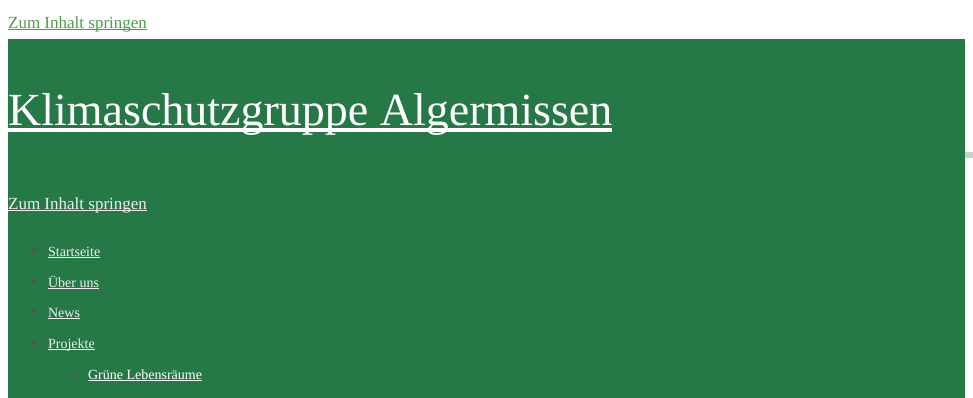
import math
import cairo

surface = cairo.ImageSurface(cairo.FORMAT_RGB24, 973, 398)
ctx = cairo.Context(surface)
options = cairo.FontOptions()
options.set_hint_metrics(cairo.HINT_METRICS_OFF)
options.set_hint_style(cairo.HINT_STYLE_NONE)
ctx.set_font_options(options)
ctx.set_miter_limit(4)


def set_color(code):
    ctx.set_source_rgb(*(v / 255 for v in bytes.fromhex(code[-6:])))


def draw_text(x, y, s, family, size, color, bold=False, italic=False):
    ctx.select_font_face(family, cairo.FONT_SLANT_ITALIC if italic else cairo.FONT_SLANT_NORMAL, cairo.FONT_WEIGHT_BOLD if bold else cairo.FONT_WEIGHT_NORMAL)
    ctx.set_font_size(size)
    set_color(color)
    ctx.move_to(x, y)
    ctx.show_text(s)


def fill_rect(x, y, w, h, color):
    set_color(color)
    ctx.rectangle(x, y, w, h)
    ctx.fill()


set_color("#ffffff")
ctx.paint()
fill_rect(965, 152, 8, 6, "#bed7c8")
fill_rect(8, 29, 139, 1, "#499e45")
draw_text(8, 28, "Zum Inhalt springen", "Liberation Serif", 17, "#499e45")
fill_rect(8, 39, 957, 359, "#267847")
fill_rect(8, 128, 604, 4, "#ffffff")
draw_text(8, 125, "Klimaschutzgruppe Algermissen", "Liberation Serif", 46, "#ffffff")
fill_rect(8, 210, 139, 1, "#eeeeee")
draw_text(8, 209, "Zum Inhalt springen", "Liberation Serif", 17, "#eeeeee")
set_color("#555555")
ctx.new_path()
ctx.arc(33.5, 250.5, 2.5, 0, 2 * math.pi)
ctx.fill()
draw_text(48, 256, "Startseite", "Liberation Serif", 14, "#eeeeee")
fill_rect(48, 257, 52, 1, "#eeeeee")
set_color("#555555")
ctx.new_path()
ctx.arc(33.5, 281.5, 2.5, 0, 2 * math.pi)
ctx.fill()
draw_text(48, 287, "Über uns", "Liberation Serif", 14, "#eeeeee")
fill_rect(48, 288, 51, 1, "#eeeeee")
set_color("#555555")
ctx.new_path()
ctx.arc(33.5, 311.5, 2.5, 0, 2 * math.pi)
ctx.fill()
draw_text(48, 317, "News", "Liberation Serif", 14, "#eeeeee")
fill_rect(48, 318, 32, 1, "#eeeeee")
set_color("#555555")
ctx.new_path()
ctx.arc(33.5, 342.5, 2.5, 0, 2 * math.pi)
ctx.fill()
fill_rect(48, 349, 47, 1, "#eeeeee")
draw_text(48, 348, "Projekte", "Liberation Serif", 14, "#eeeeee")
ctx.new_path()
ctx.arc(74, 374, 2.5, 0, 2 * math.pi)
set_color("#555555")
ctx.set_line_width(1)
ctx.stroke()
draw_text(88, 379, "Grüne Lebensräume", "Liberation Serif", 14, "#ffffff")
fill_rect(88, 380, 114, 1, "#ffffff")
surface.write_to_png("output.png")
